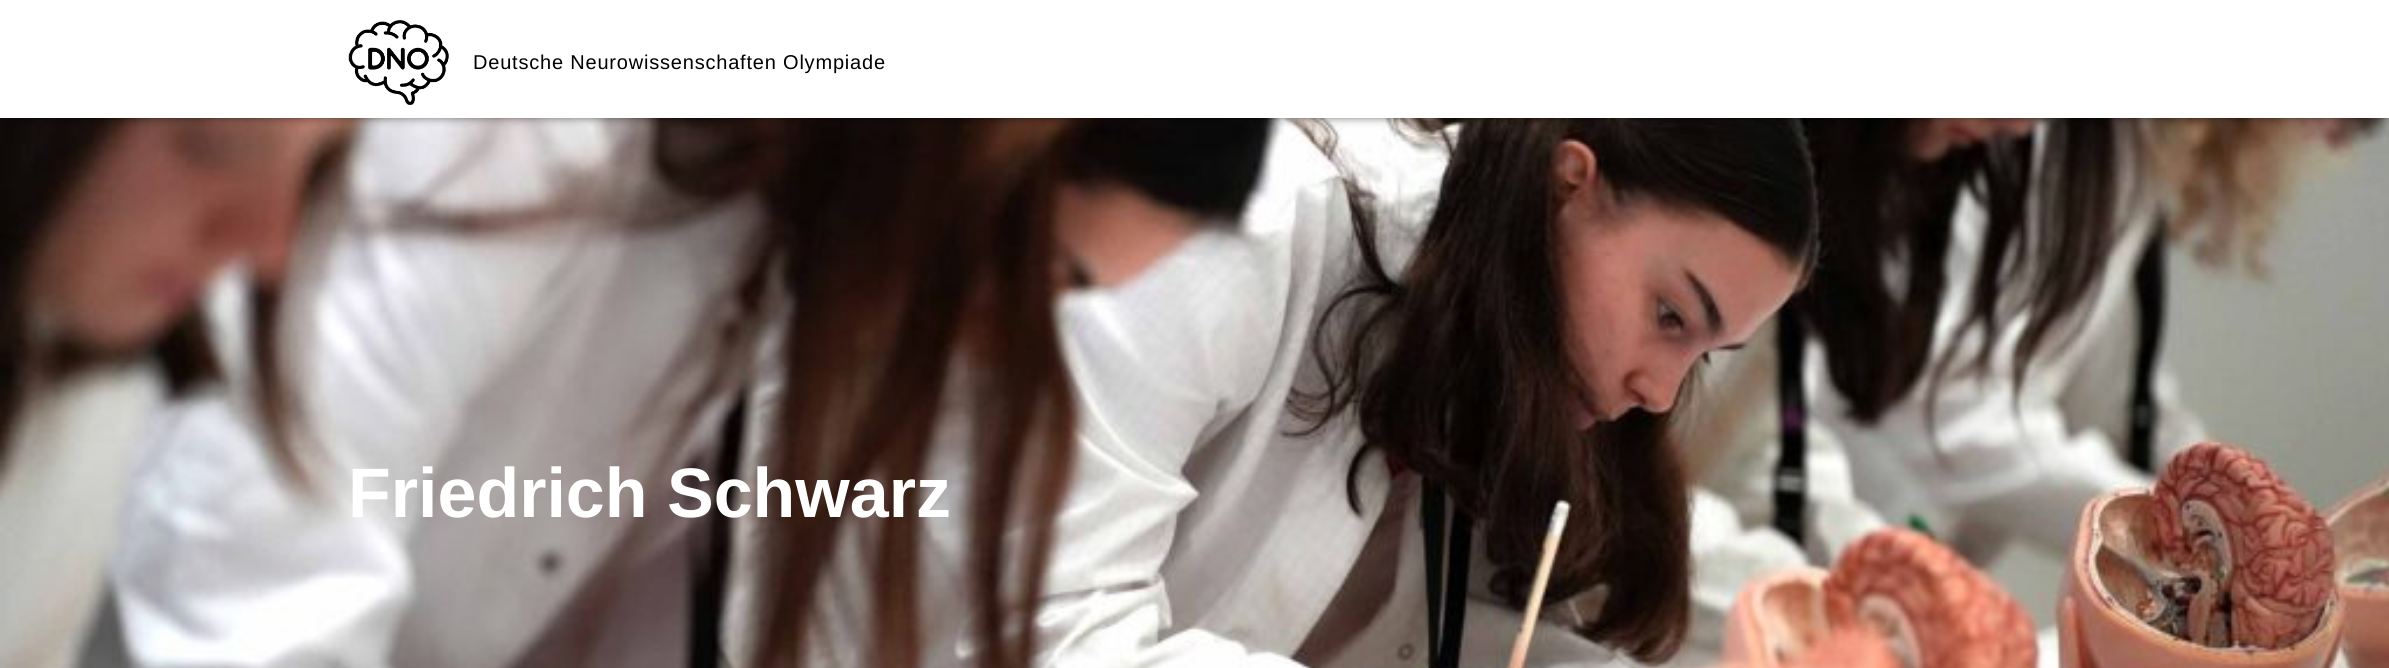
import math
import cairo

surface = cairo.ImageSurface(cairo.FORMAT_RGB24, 2389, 668)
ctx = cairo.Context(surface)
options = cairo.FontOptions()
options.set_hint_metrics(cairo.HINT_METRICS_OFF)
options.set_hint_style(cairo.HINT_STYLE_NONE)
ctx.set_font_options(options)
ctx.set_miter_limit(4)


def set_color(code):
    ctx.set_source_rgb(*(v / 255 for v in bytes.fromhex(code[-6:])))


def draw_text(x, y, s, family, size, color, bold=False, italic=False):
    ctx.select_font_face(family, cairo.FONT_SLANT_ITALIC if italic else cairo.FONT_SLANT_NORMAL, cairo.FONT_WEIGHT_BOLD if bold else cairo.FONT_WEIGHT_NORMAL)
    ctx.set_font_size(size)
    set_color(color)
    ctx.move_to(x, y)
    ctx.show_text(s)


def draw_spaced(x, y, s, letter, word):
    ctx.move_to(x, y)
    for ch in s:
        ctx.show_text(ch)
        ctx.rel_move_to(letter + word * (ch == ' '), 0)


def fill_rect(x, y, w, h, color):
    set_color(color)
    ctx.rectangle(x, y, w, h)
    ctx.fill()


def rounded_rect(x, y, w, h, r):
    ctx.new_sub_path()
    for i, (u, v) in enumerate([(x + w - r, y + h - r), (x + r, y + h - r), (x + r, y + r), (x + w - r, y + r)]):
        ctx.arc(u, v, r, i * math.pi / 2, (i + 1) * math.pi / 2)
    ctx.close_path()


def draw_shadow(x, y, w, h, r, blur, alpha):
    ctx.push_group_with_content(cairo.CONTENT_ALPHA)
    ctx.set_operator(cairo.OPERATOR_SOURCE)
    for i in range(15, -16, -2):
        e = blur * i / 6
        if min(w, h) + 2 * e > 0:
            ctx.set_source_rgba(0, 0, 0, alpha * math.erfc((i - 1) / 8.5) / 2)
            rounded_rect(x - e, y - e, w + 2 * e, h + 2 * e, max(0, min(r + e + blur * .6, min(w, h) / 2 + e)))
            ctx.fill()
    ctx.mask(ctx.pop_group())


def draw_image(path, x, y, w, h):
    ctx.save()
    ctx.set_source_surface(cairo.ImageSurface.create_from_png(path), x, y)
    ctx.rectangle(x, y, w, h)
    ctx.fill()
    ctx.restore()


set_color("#ffffff")
ctx.paint()
draw_image("assets/img2.png", 0, 118, 2389, 550)
set_color("#000000")
draw_shadow(8, 23, 2375, 95, 0, 4.5, 0.5)
fill_rect(0, 14, 2389, 104, "#ffffff")
draw_image("assets/img1.png", 348, 20, 101, 85)
ctx.select_font_face("Liberation Sans")
ctx.set_font_size(20)
set_color("#000000")
draw_spaced(473, 69, "Deutsche Neurowissenschaften Olympiade", 0.8, 0)
draw_text(348, 517, "Friedrich Schwarz", "Liberation Sans", 70, "#ffffff", bold=True)
surface.write_to_png("output.png")
